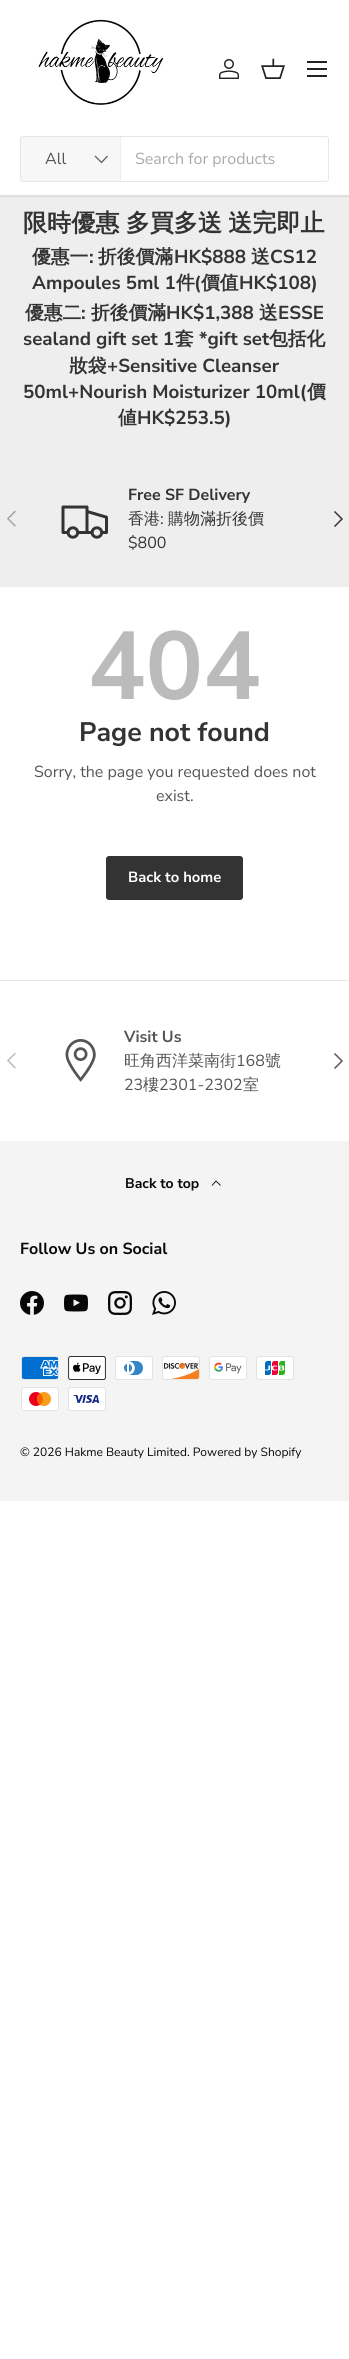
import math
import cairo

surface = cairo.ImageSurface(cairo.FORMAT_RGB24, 349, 2359)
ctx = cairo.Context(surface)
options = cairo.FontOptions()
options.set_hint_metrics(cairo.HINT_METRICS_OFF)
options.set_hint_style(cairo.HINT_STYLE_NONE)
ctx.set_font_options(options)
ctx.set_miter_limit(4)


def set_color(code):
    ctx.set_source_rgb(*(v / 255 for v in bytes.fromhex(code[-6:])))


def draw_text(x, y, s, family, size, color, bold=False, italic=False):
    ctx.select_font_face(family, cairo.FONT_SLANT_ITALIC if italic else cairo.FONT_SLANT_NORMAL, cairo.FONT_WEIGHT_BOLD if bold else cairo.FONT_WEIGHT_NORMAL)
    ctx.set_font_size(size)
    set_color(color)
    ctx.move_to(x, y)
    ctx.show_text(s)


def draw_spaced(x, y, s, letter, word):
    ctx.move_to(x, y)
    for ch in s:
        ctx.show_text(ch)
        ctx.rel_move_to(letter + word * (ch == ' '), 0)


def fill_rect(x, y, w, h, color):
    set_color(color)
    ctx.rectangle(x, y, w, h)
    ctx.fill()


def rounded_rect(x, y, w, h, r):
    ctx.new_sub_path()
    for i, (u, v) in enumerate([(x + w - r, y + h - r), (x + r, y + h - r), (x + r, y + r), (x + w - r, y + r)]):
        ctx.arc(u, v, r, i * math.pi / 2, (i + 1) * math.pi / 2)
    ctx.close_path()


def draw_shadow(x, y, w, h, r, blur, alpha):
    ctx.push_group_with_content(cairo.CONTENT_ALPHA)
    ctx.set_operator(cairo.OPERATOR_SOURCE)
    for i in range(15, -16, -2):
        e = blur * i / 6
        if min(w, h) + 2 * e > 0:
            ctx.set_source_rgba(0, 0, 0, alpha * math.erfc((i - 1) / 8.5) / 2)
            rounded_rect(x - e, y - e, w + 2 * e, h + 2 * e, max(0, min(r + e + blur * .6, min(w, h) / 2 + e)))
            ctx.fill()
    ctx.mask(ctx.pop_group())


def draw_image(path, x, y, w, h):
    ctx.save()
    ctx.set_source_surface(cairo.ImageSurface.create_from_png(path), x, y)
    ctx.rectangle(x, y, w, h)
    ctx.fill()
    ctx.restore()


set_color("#ffffff")
ctx.paint()
fill_rect(0, 196, 349, 391, "#eeeeee")
ctx.save()
ctx.rectangle(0, 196, 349, 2)
ctx.clip()
set_color("#000000")
draw_shadow(-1, -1, 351, 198, 0, 1.5, 0.08)
ctx.restore()
draw_image("assets/img1.png", 38, 19, 125, 86)
draw_image("assets/img2.png", 219, 59, 20, 20)
draw_image("assets/img3.png", 261, 58, 24, 21)
fill_rect(307, 61, 20, 2, "#222222")
fill_rect(307, 75, 20, 2, "#222222")
fill_rect(307, 68, 20, 2, "#222222")
rounded_rect(20.5, 136.5, 308, 45, 2.5)
set_color("#e6e6e6")
ctx.set_line_width(1)
ctx.stroke()
ctx.set_source_rgba(0.333, 0.333, 0.333, 0.05)
ctx.rectangle(21, 137, 99, 44)
ctx.fill()
fill_rect(120, 137, 1, 44, "#eeeeee")
draw_text(45, 164, "All", "Nunito Sans", 16, "#555555")
ctx.new_path()
ctx.move_to(107.5, 156)
ctx.line_to(101.5, 162.5)
ctx.line_to(95, 156)
ctx.set_line_width(1.2)
ctx.stroke()
draw_text(135, 164, "Search for products", "Nunito Sans", 16, "#aaaaaa")
fill_rect(0, 195, 349, 1, "#dedede")
ctx.select_font_face("WenQuanYi Zen Hei", cairo.FONT_SLANT_NORMAL, cairo.FONT_WEIGHT_BOLD)
ctx.set_font_size(24.1)
set_color("#333333")
draw_spaced(23, 231, "限時優惠 多買多送 送完即止", 0, -1)
draw_text(32, 263, "優惠一", "WenQuanYi Zen Hei", 18.75, "#333333", bold=True)
draw_text(89, 263, ":", "Nunito Sans", 18.75, "#333333", bold=True)
draw_text(98, 263, "折後價滿", "WenQuanYi Zen Hei", 18.75, "#333333", bold=True)
draw_text(174, 263, "HK$888", "Nunito Sans", 18.75, "#333333", bold=True)
draw_text(251, 263, "送", "WenQuanYi Zen Hei", 18.75, "#333333", bold=True)
draw_text(270, 263, "CS12", "Nunito Sans", 18.75, "#333333", bold=True)
draw_text(32, 289, "Ampoules 5ml 1", "Nunito Sans", 18.75, "#333333", bold=True)
draw_text(176, 289, "件", "WenQuanYi Zen Hei", 18.75, "#333333", bold=True)
draw_text(194, 289, "(", "Nunito Sans", 18.75, "#333333", bold=True)
draw_text(201, 289, "價值", "WenQuanYi Zen Hei", 18.75, "#333333", bold=True)
draw_text(239, 289, "HK$108)", "Nunito Sans", 18.75, "#333333", bold=True)
draw_text(25, 319, "優惠二", "WenQuanYi Zen Hei", 18.75, "#333333", bold=True)
draw_text(81, 319, ":", "Nunito Sans", 18.75, "#333333", bold=True)
draw_text(91, 319, "折後價滿", "WenQuanYi Zen Hei", 18.75, "#333333", bold=True)
draw_text(166, 319, "HK$1,388", "Nunito Sans", 18.75, "#333333", bold=True)
draw_text(259, 319, "送", "WenQuanYi Zen Hei", 18.75, "#333333", bold=True)
draw_text(278, 319, "ESSE", "Nunito Sans", 18.75, "#333333", bold=True)
draw_text(23, 345, "sealand gift set 1", "Nunito Sans", 18.75, "#333333", bold=True)
draw_text(175, 345, "套", "WenQuanYi Zen Hei", 18.75, "#333333", bold=True)
draw_text(199, 345, "*gift set", "Nunito Sans", 18.75, "#333333", bold=True)
draw_text(269, 345, "包括化", "WenQuanYi Zen Hei", 18.75, "#333333", bold=True)
draw_text(69, 372, "妝袋", "WenQuanYi Zen Hei", 18.75, "#333333", bold=True)
draw_text(107, 372, "+Sensitive Cleanser", "Nunito Sans", 18.75, "#333333", bold=True)
draw_text(23, 398, "50ml+Nourish Moisturizer 10ml(", "Nunito Sans", 18.75, "#333333", bold=True)
draw_text(307, 398, "價", "WenQuanYi Zen Hei", 18.75, "#333333", bold=True)
draw_text(118, 424, "値", "WenQuanYi Zen Hei", 18.75, "#333333", bold=True)
draw_text(137, 424, "HK$253.5)", "Nunito Sans", 18.75, "#333333", bold=True)
draw_image("assets/img4.png", 61, 505, 47, 34)
draw_text(128, 500, "Free SF Delivery", "Nunito Sans", 16, "#333333", bold=True)
draw_text(128, 524, "香港", "WenQuanYi Zen Hei Medium", 16, "#333333")
draw_text(160, 524, ":", "Nunito Sans", 16, "#333333")
draw_text(168, 524, "購物滿折後價", "WenQuanYi Zen Hei Medium", 16, "#333333")
draw_text(128, 548, "$800", "Nunito Sans", 16, "#333333")
draw_image("assets/img5.png", 7, 510, 9, 17)
ctx.new_path()
ctx.move_to(334.5, 511.5)
ctx.line_to(342, 519)
ctx.line_to(334.5, 526.5)
ctx.set_line_width(1.5)
ctx.stroke()
draw_text(88, 699, "404", "Nunito Sans", 96, "#bbbbbb", bold=True)
draw_text(79, 741, "Page not found", "Nunito Sans", 26.75, "#333333", bold=True)
draw_text(34, 777, "Sorry, the page you requested does not", "Nunito Sans", 16, "#555555")
draw_text(156, 801, "exist.", "Nunito Sans", 16, "#555555")
gradient = cairo.LinearGradient(-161, 828, 236, 928)
gradient.add_color_stop_rgba(0.6, 0.353, 0.353, 0.353, 1)
gradient.add_color_stop_rgba(0.6, 0.2, 0.2, 0.2, 1)
gradient.add_color_stop_rgba(1, 0.2, 0.2, 0.2, 1)
ctx.set_source(gradient)
rounded_rect(106, 856, 137, 44, 3)
ctx.fill()
draw_text(128, 882, "Back to home", "Nunito Sans", 14.75, "#ffffff", bold=True)
fill_rect(0, 980, 349, 1, "#e6e6e6")
draw_image("assets/img6.png", 65, 1039, 31, 43)
draw_text(124, 1042, "Visit Us", "Nunito Sans", 16, "#555555", bold=True)
draw_text(124, 1066, "旺角西洋菜南街", "WenQuanYi Zen Hei Medium", 16, "#555555")
draw_text(236, 1066, "168", "Nunito Sans", 16, "#555555")
draw_text(265, 1066, "號", "WenQuanYi Zen Hei Medium", 16, "#555555")
draw_text(124, 1090, "23", "Nunito Sans", 16, "#555555")
draw_text(143, 1090, "樓", "WenQuanYi Zen Hei Medium", 16, "#555555")
draw_text(159, 1090, "2301-2302", "Nunito Sans", 16, "#555555")
draw_text(243, 1090, "室", "WenQuanYi Zen Hei Medium", 16, "#555555")
draw_image("assets/img7.png", 7, 1052, 9, 17)
ctx.new_path()
ctx.move_to(334.5, 1053.5)
ctx.line_to(342, 1061)
ctx.line_to(334.5, 1068.5)
ctx.stroke()
fill_rect(0, 1141, 349, 360, "#f4f4f4")
draw_text(125, 1188, "Back to top", "Nunito Sans", 14, "#070707", bold=True)
ctx.new_path()
ctx.move_to(212, 1185.5)
ctx.line_to(216, 1181)
ctx.line_to(220.5, 1185.5)
ctx.set_line_width(0.9)
ctx.stroke()
draw_text(20, 1254, "Follow Us on Social", "Nunito Sans", 16, "#070707", bold=True)
draw_image("assets/img8.png", 20, 1291, 24, 24)
draw_image("assets/img9.png", 64, 1294, 24, 18)
draw_image("assets/img10.png", 108, 1291, 24, 24)
draw_image("assets/img11.png", 152, 1291, 24, 24)
draw_image("assets/img12.png", 21, 1356, 38, 24)
draw_image("assets/img13.png", 68, 1356, 38, 24)
draw_image("assets/img14.png", 115, 1356, 38, 24)
draw_image("assets/img15.png", 162, 1356, 38, 24)
draw_image("assets/img16.png", 209, 1356, 38, 24)
draw_image("assets/img17.png", 256, 1356, 38, 24)
draw_image("assets/img18.png", 21, 1387, 38, 24)
draw_image("assets/img19.png", 68, 1387, 38, 24)
draw_text(20, 1456, "© 2026 Hakme Beauty Limited. Powered by Shopify", "Nunito Sans", 12, "#070707")
surface.write_to_png("output.png")
